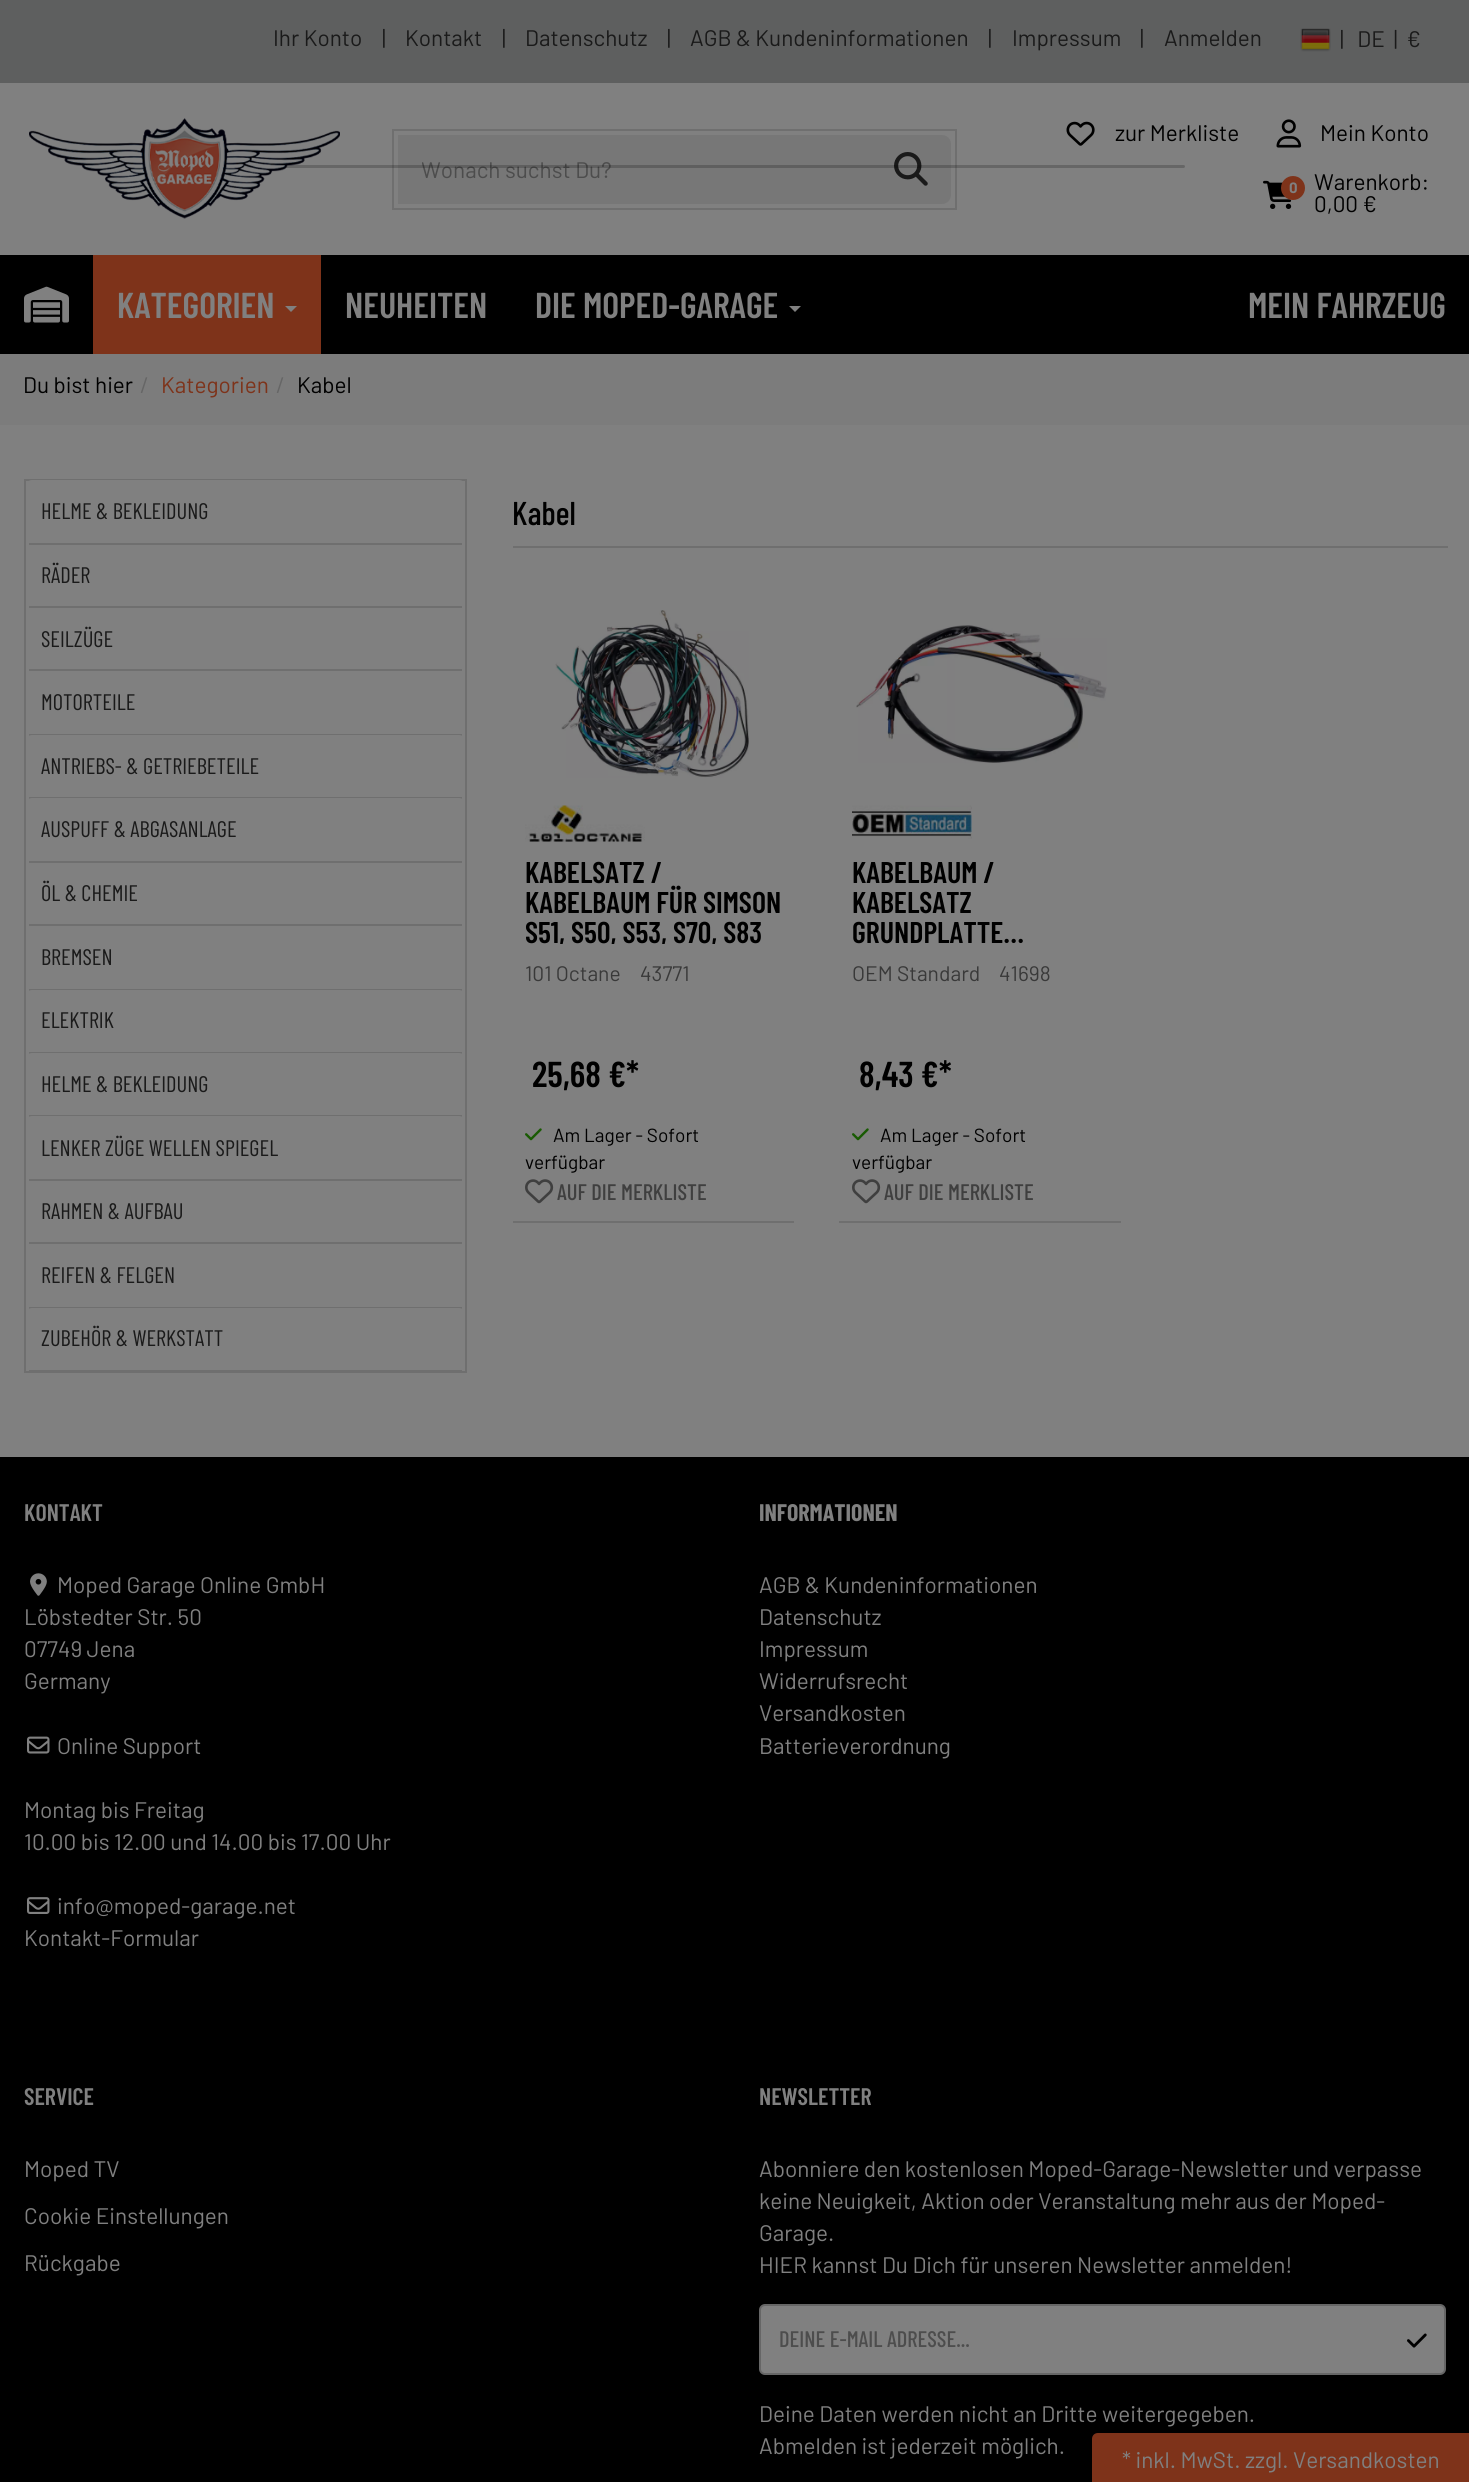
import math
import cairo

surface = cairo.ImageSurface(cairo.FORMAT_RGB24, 1469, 2482)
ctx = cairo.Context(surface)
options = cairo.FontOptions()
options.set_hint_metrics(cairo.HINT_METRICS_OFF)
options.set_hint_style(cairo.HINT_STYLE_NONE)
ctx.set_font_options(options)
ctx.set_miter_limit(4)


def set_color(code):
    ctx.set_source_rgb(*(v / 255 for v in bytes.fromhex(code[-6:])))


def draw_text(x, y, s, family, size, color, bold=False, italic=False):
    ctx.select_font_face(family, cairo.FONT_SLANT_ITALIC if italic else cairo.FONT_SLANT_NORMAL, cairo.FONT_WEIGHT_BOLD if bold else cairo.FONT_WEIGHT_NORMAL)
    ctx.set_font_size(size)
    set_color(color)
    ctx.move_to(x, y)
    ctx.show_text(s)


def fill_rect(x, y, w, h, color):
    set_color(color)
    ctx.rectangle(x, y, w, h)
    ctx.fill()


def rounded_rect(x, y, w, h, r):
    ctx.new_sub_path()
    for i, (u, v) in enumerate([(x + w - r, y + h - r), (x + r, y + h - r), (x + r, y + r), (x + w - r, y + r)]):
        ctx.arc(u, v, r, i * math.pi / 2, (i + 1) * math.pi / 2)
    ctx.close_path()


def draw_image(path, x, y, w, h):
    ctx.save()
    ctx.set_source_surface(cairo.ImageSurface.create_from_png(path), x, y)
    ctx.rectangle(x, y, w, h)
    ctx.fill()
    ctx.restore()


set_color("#808080")
ctx.paint()
fill_rect(0, 0, 1469, 83, "#5e5f5f")
draw_text(273, 46, "Ihr Konto", "Barlow", 22.5, "#1a1a1a")
draw_text(382, 46, "|", "Barlow", 22.5, "#1a1a1a")
draw_text(405, 46, "Kontakt", "Barlow", 22.5, "#1a1a1a")
draw_text(502, 46, "|", "Barlow", 22.5, "#1a1a1a")
draw_text(525, 46, "Datenschutz", "Barlow", 22.5, "#1a1a1a")
draw_text(667, 46, "|", "Barlow", 22.5, "#1a1a1a")
draw_text(690, 46, "AGB & Kundeninformationen", "Barlow", 22.5, "#1a1a1a")
draw_text(988, 46, "|", "Barlow", 22.5, "#1a1a1a")
draw_text(1012, 46, "Impressum", "Barlow", 22.5, "#1a1a1a")
draw_text(1140, 46, "|", "Barlow", 22.5, "#1a1a1a")
draw_text(1164, 46, "Anmelden", "Barlow", 22.5, "#1a1a1a")
draw_image("assets/img1.png", 1300, 28, 31, 24)
draw_text(1340, 47, "|   DE  |  €", "Barlow", 22.5, "#1a1a1a")
draw_image("assets/img2.png", 29, 118, 311, 101)
ctx.rectangle(393, 130, 563, 79)
set_color("#6f6f6f")
ctx.stroke()
fill_rect(398, 135, 472, 69, "#777777")
ctx.save()
ctx.rectangle(422, 156, 426, 27)
ctx.clip()
draw_text(421, 178, "Wonach suchst Du?", "Barlow", 22.5, "#4d4d4d")
ctx.restore()
ctx.new_path()
ctx.move_to(870, 135)
ctx.line_to(942, 135)
ctx.curve_to(947, 135, 951, 139, 951, 144)
ctx.line_to(951, 195)
ctx.curve_to(951, 200, 947, 204, 942, 204)
ctx.line_to(870, 204)
ctx.close_path()
ctx.fill()
draw_image("assets/img3.png", 894, 152, 34, 34)
draw_image("assets/img4.png", 1066, 121, 29, 25)
draw_text(1115, 141, "zur Merkliste", "Barlow", 22.5, "#000000")
draw_image("assets/img5.png", 1276, 119, 26, 29)
draw_text(1320, 141, "Mein Konto", "Barlow", 22.5, "#000000")
draw_image("assets/img6.png", 1263, 180, 29, 29)
set_color("#7e331a")
ctx.arc(1293, 188, 12, 0, 2 * math.pi)
ctx.fill()
draw_text(1289, 193, "0", "Barlow", 15, "#808080", bold=True)
draw_text(1314, 190, "Warenkorb:", "Barlow", 22.5, "#000000")
draw_text(1314, 212, "0,00 €", "Barlow", 22.5, "#000000")
fill_rect(0, 255, 1469, 99, "#000000")
draw_image("assets/img7.png", 24, 286, 45, 37)
fill_rect(93, 255, 228, 99, "#7e331a")
draw_text(117, 318, "KATEGORIEN", "Barlow Condensed SemiBold", 36, "#808080")
ctx.new_path()
ctx.move_to(285, 306)
ctx.line_to(297, 306)
ctx.line_to(291, 312)
ctx.close_path()
ctx.fill()
draw_text(345, 318, "NEUHEITEN", "Barlow Condensed SemiBold", 36, "#808080")
draw_text(535, 318, "DIE MOPED-GARAGE", "Barlow Condensed SemiBold", 36, "#808080")
ctx.new_path()
ctx.move_to(789, 306)
ctx.line_to(801, 306)
ctx.line_to(795, 312)
ctx.close_path()
ctx.fill()
draw_text(1248, 318, "MEIN FAHRZEUG", "Barlow Condensed SemiBold", 36, "#808080")
fill_rect(0, 354, 1469, 71, "#7c7c7c")
draw_text(23, 393, "Du bist hier", "Barlow", 22.5, "#000000")
draw_text(140, 393, "/", "Barlow", 22.5, "#666666")
draw_text(161, 393, "Kategorien", "Barlow", 22.5, "#7e331a")
draw_text(276, 393, "/", "Barlow", 22.5, "#666666")
draw_text(297, 393, "Kabel", "Barlow", 22.5, "#000000")
ctx.set_source_rgba(0, 0, 0, 0.2)
rounded_rect(285, 165, 900, 3, 1.5)
ctx.fill()
ctx.rectangle(25, 480, 441, 892)
set_color("#6f6f6f")
ctx.stroke()
set_color("#808080")
rounded_rect(26, 480, 439, 65, 6)
ctx.fill()
fill_rect(29, 543, 433, 2, "#6f6f6f")
draw_text(41, 519, "HELME & BEKLEIDUNG", "Barlow Condensed", 22.5, "#1a1a1a")
fill_rect(29, 606, 433, 2, "#6f6f6f")
draw_text(41, 583, "RÄDER", "Barlow Condensed", 22.5, "#1a1a1a")
fill_rect(29, 669, 433, 2, "#6f6f6f")
draw_text(41, 647, "SEILZÜGE", "Barlow Condensed", 22.5, "#1a1a1a")
fill_rect(29, 734, 433, 2, "#6f6f6f")
draw_text(41, 710, "MOTORTEILE", "Barlow Condensed", 22.5, "#1a1a1a")
set_color("#808080")
rounded_rect(26, 735, 439, 63, 6)
ctx.fill()
fill_rect(29, 797, 433, 2, "#6f6f6f")
draw_text(41, 774, "ANTRIEBS- & GETRIEBETEILE", "Barlow Condensed", 22.5, "#1a1a1a")
set_color("#808080")
rounded_rect(26, 798, 439, 65, 6)
ctx.fill()
fill_rect(29, 861, 433, 2, "#6f6f6f")
draw_text(41, 837, "AUSPUFF & ABGASANLAGE", "Barlow Condensed", 22.5, "#1a1a1a")
fill_rect(29, 924, 433, 2, "#6f6f6f")
draw_text(41, 901, "ÖL & CHEMIE", "Barlow Condensed", 22.5, "#1a1a1a")
fill_rect(29, 989, 433, 2, "#6f6f6f")
draw_text(41, 965, "BREMSEN", "Barlow Condensed", 22.5, "#1a1a1a")
set_color("#808080")
rounded_rect(26, 990, 439, 63, 6)
ctx.fill()
fill_rect(29, 1052, 433, 2, "#6f6f6f")
draw_text(41, 1028, "ELEKTRIK", "Barlow Condensed", 22.5, "#1a1a1a")
set_color("#808080")
rounded_rect(26, 1053, 439, 63, 6)
ctx.fill()
fill_rect(29, 1115, 433, 2, "#6f6f6f")
draw_text(41, 1092, "HELME & BEKLEIDUNG", "Barlow Condensed", 22.5, "#1a1a1a")
set_color("#808080")
rounded_rect(26, 1116, 439, 65, 6)
ctx.fill()
fill_rect(29, 1179, 433, 2, "#6f6f6f")
draw_text(41, 1156, "LENKER ZÜGE WELLEN SPIEGEL", "Barlow Condensed", 22.5, "#1a1a1a")
fill_rect(29, 1242, 433, 2, "#6f6f6f")
draw_text(41, 1219, "RAHMEN & AUFBAU", "Barlow Condensed", 22.5, "#1a1a1a")
fill_rect(29, 1307, 433, 2, "#6f6f6f")
draw_text(41, 1283, "REIFEN & FELGEN", "Barlow Condensed", 22.5, "#1a1a1a")
set_color("#808080")
rounded_rect(26, 1308, 439, 63, 6)
ctx.fill()
fill_rect(29, 1370, 433, 1, "#6f6f6f")
draw_text(41, 1346, "ZUBEHÖR & WERKSTATT", "Barlow Condensed", 22.5, "#1a1a1a")
fill_rect(513, 546, 935, 2, "#6f6f6f")
draw_text(512, 525, "Kabel", "Barlow Condensed Medium", 33, "#000000")
fill_rect(513, 1221, 281, 2, "#6f6f6f")
draw_image("assets/img8.png", 555, 610, 194, 168)
draw_image("assets/img9.png", 525, 805, 120, 37)
draw_text(525, 883, "KABELSATZ /", "Barlow Condensed SemiBold", 30, "#000000")
draw_text(525, 913, "KABELBAUM FÜR SIMSON", "Barlow Condensed SemiBold", 30, "#000000")
ctx.save()
ctx.rectangle(525, 857, 257, 87)
ctx.clip()
draw_text(525, 943, "S51, S50, S53, S70, S83", "Barlow Condensed SemiBold", 30, "#000000")
ctx.restore()
draw_text(525, 981, "101 Octane", "Barlow", 21, "#393939")
draw_text(640, 981, "43771", "Barlow", 21, "#393939")
draw_text(532, 1087, "25,68 €*", "Barlow Condensed SemiBold", 36, "#000000")
draw_image("assets/img10.png", 525, 1128, 17, 13)
draw_text(553, 1142, "Am Lager - Sofort", "Barlow", 19, "#000000")
draw_text(525, 1169, "verfügbar", "Barlow", 19, "#000000")
draw_image("assets/img11.png", 525, 1179, 29, 25)
draw_text(557, 1200, "AUF DIE MERKLISTE", "Barlow Condensed Medium", 22.5, "#3f3f3f")
fill_rect(839, 1221, 282, 2, "#6f6f6f")
draw_image("assets/img12.png", 856, 625, 251, 138)
draw_image("assets/img13.png", 852, 805, 120, 34)
draw_text(852, 883, "KABELBAUM /", "Barlow Condensed SemiBold", 30, "#000000")
draw_text(852, 913, "KABELSATZ", "Barlow Condensed SemiBold", 30, "#000000")
draw_text(852, 943, "GRUNDPLATTE…", "Barlow Condensed SemiBold", 30, "#000000")
draw_text(852, 981, "OEM Standard", "Barlow", 21, "#393939")
draw_text(999, 981, "41698", "Barlow", 21, "#393939")
draw_text(859, 1087, "8,43 €*", "Barlow Condensed SemiBold", 36, "#000000")
draw_image("assets/img10.png", 852, 1128, 17, 13)
draw_text(880, 1142, "Am Lager - Sofort", "Barlow", 19, "#000000")
draw_text(852, 1169, "verfügbar", "Barlow", 19, "#000000")
draw_image("assets/img11.png", 852, 1179, 29, 25)
draw_text(884, 1200, "AUF DIE MERKLISTE", "Barlow Condensed Medium", 22.5, "#3f3f3f")
fill_rect(0, 1457, 1469, 1025, "#000000")
draw_text(24, 1521, "KONTAKT", "Barlow Condensed SemiBold", 24, "#808080")
draw_image("assets/img14.png", 30, 1573, 17, 23)
draw_text(57, 1593, "Moped Garage Online GmbH", "Barlow", 22.5, "#808080")
draw_text(24, 1625, "Löbstedter Str. 50", "Barlow", 22.5, "#808080")
draw_text(24, 1657, "07749 Jena", "Barlow", 22.5, "#808080")
draw_text(24, 1689, "Germany", "Barlow", 22.5, "#808080")
draw_image("assets/img15.png", 27, 1736, 23, 18)
draw_text(57, 1754, "Online Support", "Barlow", 22.5, "#808080")
draw_text(24, 1818, "Montag bis Freitag", "Barlow", 22.5, "#808080")
draw_text(24, 1850, "10.00 bis 12.00 und 14.00 bis 17.00 Uhr", "Barlow", 22.5, "#808080")
draw_image("assets/img16.png", 27, 1897, 23, 17)
draw_text(57, 1914, "info@moped-garage.net", "Barlow", 22.5, "#808080")
draw_text(24, 1946, "Kontakt-Formular", "Barlow", 22.5, "#808080")
draw_text(759, 1521, "INFORMATIONEN", "Barlow Condensed", 24, "#808080", bold=True)
draw_text(759, 1593, "AGB & Kundeninformationen", "Barlow", 22.5, "#808080")
draw_text(759, 1625, "Datenschutz", "Barlow", 22.5, "#808080")
draw_text(759, 1657, "Impressum", "Barlow", 22.5, "#808080")
draw_text(759, 1689, "Widerrufsrecht", "Barlow", 22.5, "#808080")
draw_text(759, 1721, "Versandkosten", "Barlow", 22.5, "#808080")
draw_text(759, 1754, "Batterieverordnung", "Barlow", 22.5, "#808080")
draw_text(24, 2105, "SERVICE", "Barlow Condensed SemiBold", 24, "#808080")
draw_text(24, 2177, "Moped TV", "Barlow", 22.5, "#808080")
draw_text(24, 2224, "Cookie Einstellungen", "Barlow", 22.5, "#808080")
draw_text(24, 2271, "Rückgabe", "Barlow", 22.5, "#808080")
draw_text(759, 2105, "NEWSLETTER", "Barlow Condensed SemiBold", 24, "#808080")
draw_text(759, 2177, "Abonniere den kostenlosen Moped-Garage-Newsletter und verpasse", "Barlow", 22.5, "#808080")
draw_text(759, 2209, "keine Neuigkeit, Aktion oder Veranstaltung mehr aus der Moped-", "Barlow", 22.5, "#808080")
draw_text(759, 2241, "Garage.", "Barlow", 22.5, "#808080")
draw_text(759, 2273, "HIER kannst Du Dich für unseren Newsletter anmelden!", "Barlow", 22.5, "#808080")
rounded_rect(760, 2305, 685, 69, 5)
ctx.fill_preserve()
set_color("#666666")
ctx.stroke()
draw_text(779, 2347, "DEINE E-MAIL ADRESSE...", "Barlow Condensed Medium", 22.5, "#4d4d4d")
draw_image("assets/img17.png", 1407, 2333, 20, 15)
draw_text(759, 2422, "Deine Daten werden nicht an Dritte weitergegeben.", "Barlow", 22.5, "#808080")
draw_text(759, 2454, "Abmelden ist jederzeit möglich.", "Barlow", 22.5, "#808080")
set_color("#7e331a")
ctx.new_path()
ctx.move_to(1098, 2433)
ctx.line_to(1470, 2433)
ctx.line_to(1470, 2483)
ctx.line_to(1092, 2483)
ctx.line_to(1092, 2439)
ctx.curve_to(1092, 2435.5, 1094.5, 2433, 1098, 2433)
ctx.close_path()
ctx.fill()
draw_text(1122, 2468, "* inkl. MwSt. zzgl. Versandkosten", "Barlow", 22.5, "#808080")
surface.write_to_png("output.png")
